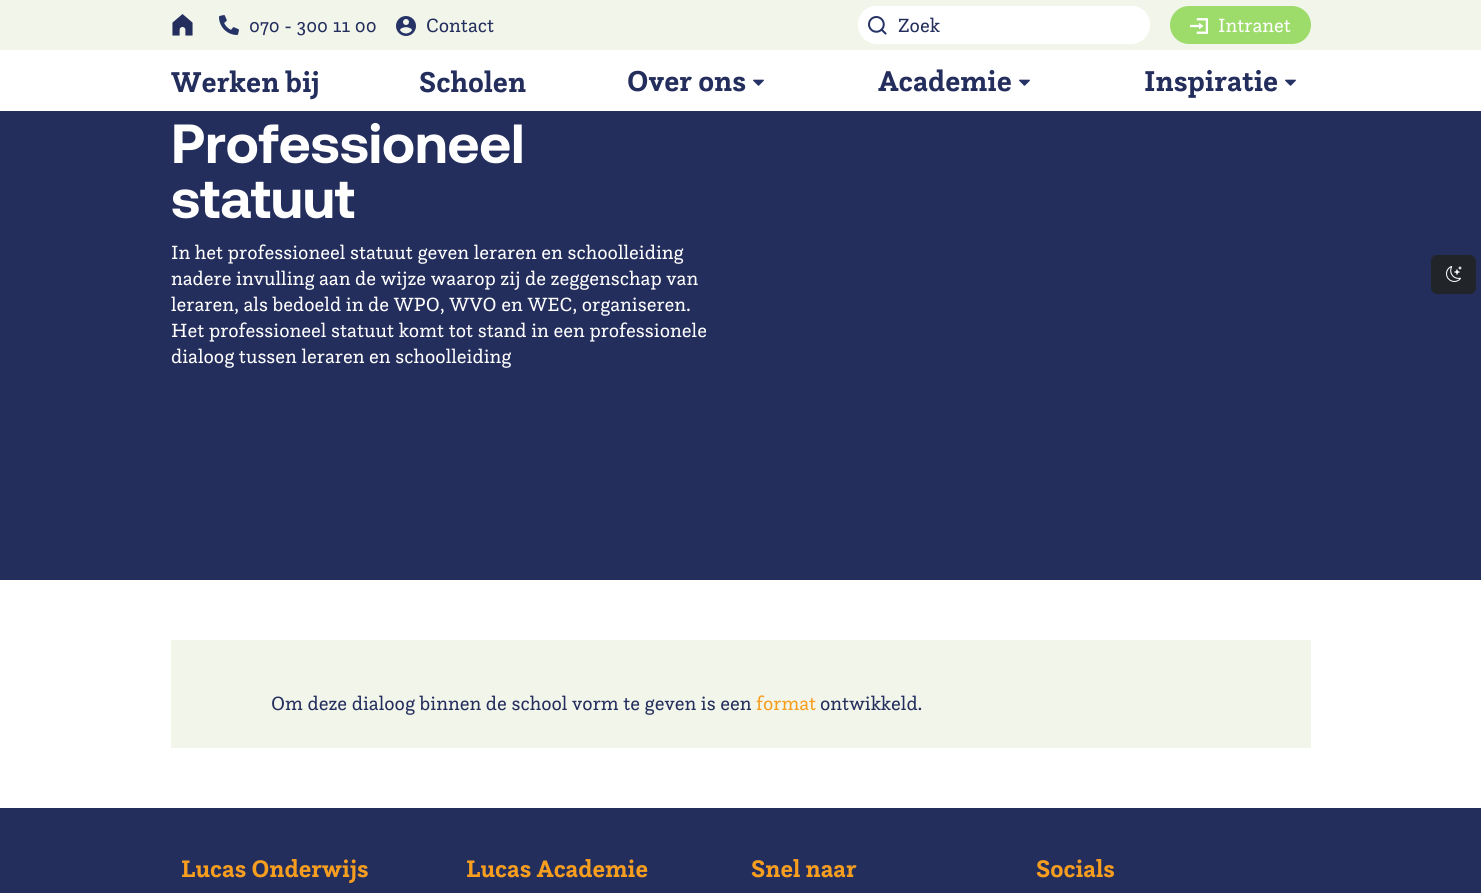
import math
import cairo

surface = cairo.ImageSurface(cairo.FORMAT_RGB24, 1481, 893)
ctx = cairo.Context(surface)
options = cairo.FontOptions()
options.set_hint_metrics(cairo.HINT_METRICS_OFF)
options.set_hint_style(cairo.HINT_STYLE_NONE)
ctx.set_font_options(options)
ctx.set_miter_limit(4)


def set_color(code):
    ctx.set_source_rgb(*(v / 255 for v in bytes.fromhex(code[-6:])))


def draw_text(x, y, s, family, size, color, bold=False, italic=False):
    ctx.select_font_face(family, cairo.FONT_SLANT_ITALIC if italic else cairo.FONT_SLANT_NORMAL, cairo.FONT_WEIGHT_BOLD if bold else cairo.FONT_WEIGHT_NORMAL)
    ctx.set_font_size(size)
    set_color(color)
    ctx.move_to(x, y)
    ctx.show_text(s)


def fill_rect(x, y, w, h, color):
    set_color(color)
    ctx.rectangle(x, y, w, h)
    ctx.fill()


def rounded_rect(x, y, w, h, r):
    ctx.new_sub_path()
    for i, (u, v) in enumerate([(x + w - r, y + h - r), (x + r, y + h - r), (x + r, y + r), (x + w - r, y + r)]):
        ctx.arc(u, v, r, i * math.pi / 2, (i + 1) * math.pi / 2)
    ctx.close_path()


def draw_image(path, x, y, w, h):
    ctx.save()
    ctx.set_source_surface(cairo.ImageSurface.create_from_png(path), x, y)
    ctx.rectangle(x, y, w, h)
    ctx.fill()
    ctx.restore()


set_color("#ffffff")
ctx.paint()
fill_rect(0, 0, 1481, 50, "#f2f5ea")
draw_image("assets/img1.png", 172, 14, 21, 22)
draw_image("assets/img2.png", 219, 15, 20, 20)
draw_text(249, 32, "070 - 300 11 00", "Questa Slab", 20, "#242e5d")
draw_image("assets/img3.png", 396, 16, 20, 20)
draw_text(426, 32, "Contact", "Questa Slab", 20, "#242e5d")
set_color("#ffffff")
rounded_rect(858, 6, 292, 38, 19)
ctx.fill()
rounded_rect(858, 6, 292, 36, 18)
ctx.fill()
draw_image("assets/img4.png", 868, 16, 19, 19)
draw_text(898, 32, "Zoek", "Questa Slab", 20, "#242e5d")
set_color("#9ddc6b")
rounded_rect(1170, 6, 141, 38, 19)
ctx.fill()
draw_image("assets/img5.png", 1190, 18, 18, 16)
draw_text(1218, 32, "Intranet", "Questa Slab", 20, "#ffffff")
draw_text(171, 92, "Werken bij", "Questa Slab", 30, "#242e5d", bold=True)
draw_text(419, 92, "Scholen", "Questa Slab", 30, "#242e5d", bold=True)
draw_text(627, 91, "Over ons", "Questa Slab", 30, "#242e5d", bold=True)
draw_image("assets/img6.png", 753, 79, 11, 7)
draw_text(878, 91, "Academie", "Questa Slab", 30, "#242e5d", bold=True)
draw_image("assets/img6.png", 1019, 79, 11, 7)
draw_text(1144, 91, "Inspiratie", "Questa Slab", 30, "#242e5d", bold=True)
draw_image("assets/img6.png", 1285, 79, 11, 7)
fill_rect(0, 111, 1481, 469, "#242e5d")
draw_text(171, 163, "Professioneel", "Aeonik", 55, "#ffffff", bold=True)
draw_text(171, 218, "statuut", "Aeonik", 55, "#ffffff", bold=True)
draw_text(171, 259, "In het professioneel statuut geven leraren en schoolleiding", "Questa Slab", 20, "#ffffff")
draw_text(171, 285, "nadere invulling aan de wijze waarop zij de zeggenschap van", "Questa Slab", 20, "#ffffff")
draw_text(171, 311, "leraren, als bedoeld in de WPO, WVO en WEC, organiseren.", "Questa Slab", 20, "#ffffff")
draw_text(171, 337, "Het professioneel statuut komt tot stand in een professionele", "Questa Slab", 20, "#ffffff")
draw_text(171, 363, "dialoog tussen leraren en schoolleiding", "Questa Slab", 20, "#ffffff")
set_color("#212529")
rounded_rect(1431.5, 255.5, 44, 38, 5.5)
ctx.fill_preserve()
ctx.set_line_width(1)
ctx.stroke()
draw_image("assets/img7.png", 1446, 266, 16, 16)
fill_rect(171, 640, 1140, 108, "#f2f5ea")
draw_text(271, 710, "Om deze dialoog binnen de school vorm te geven is een", "Questa Slab", 20, "#242e5d")
draw_text(756, 710, "format", "Questa Slab", 20, "#f79e1f")
draw_text(820, 710, "ontwikkeld.", "Questa Slab", 20, "#242e5d")
fill_rect(0, 808, 1481, 85, "#242e5d")
draw_text(181, 877, "Lucas Onderwijs", "Questa Slab", 25, "#f79e1f", bold=True)
draw_text(466, 877, "Lucas Academie", "Questa Slab", 25, "#f79e1f", bold=True)
draw_text(751, 877, "Snel naar", "Questa Slab", 25, "#f79e1f", bold=True)
draw_text(1036, 877, "Socials", "Questa Slab", 25, "#f79e1f", bold=True)
surface.write_to_png("output.png")
